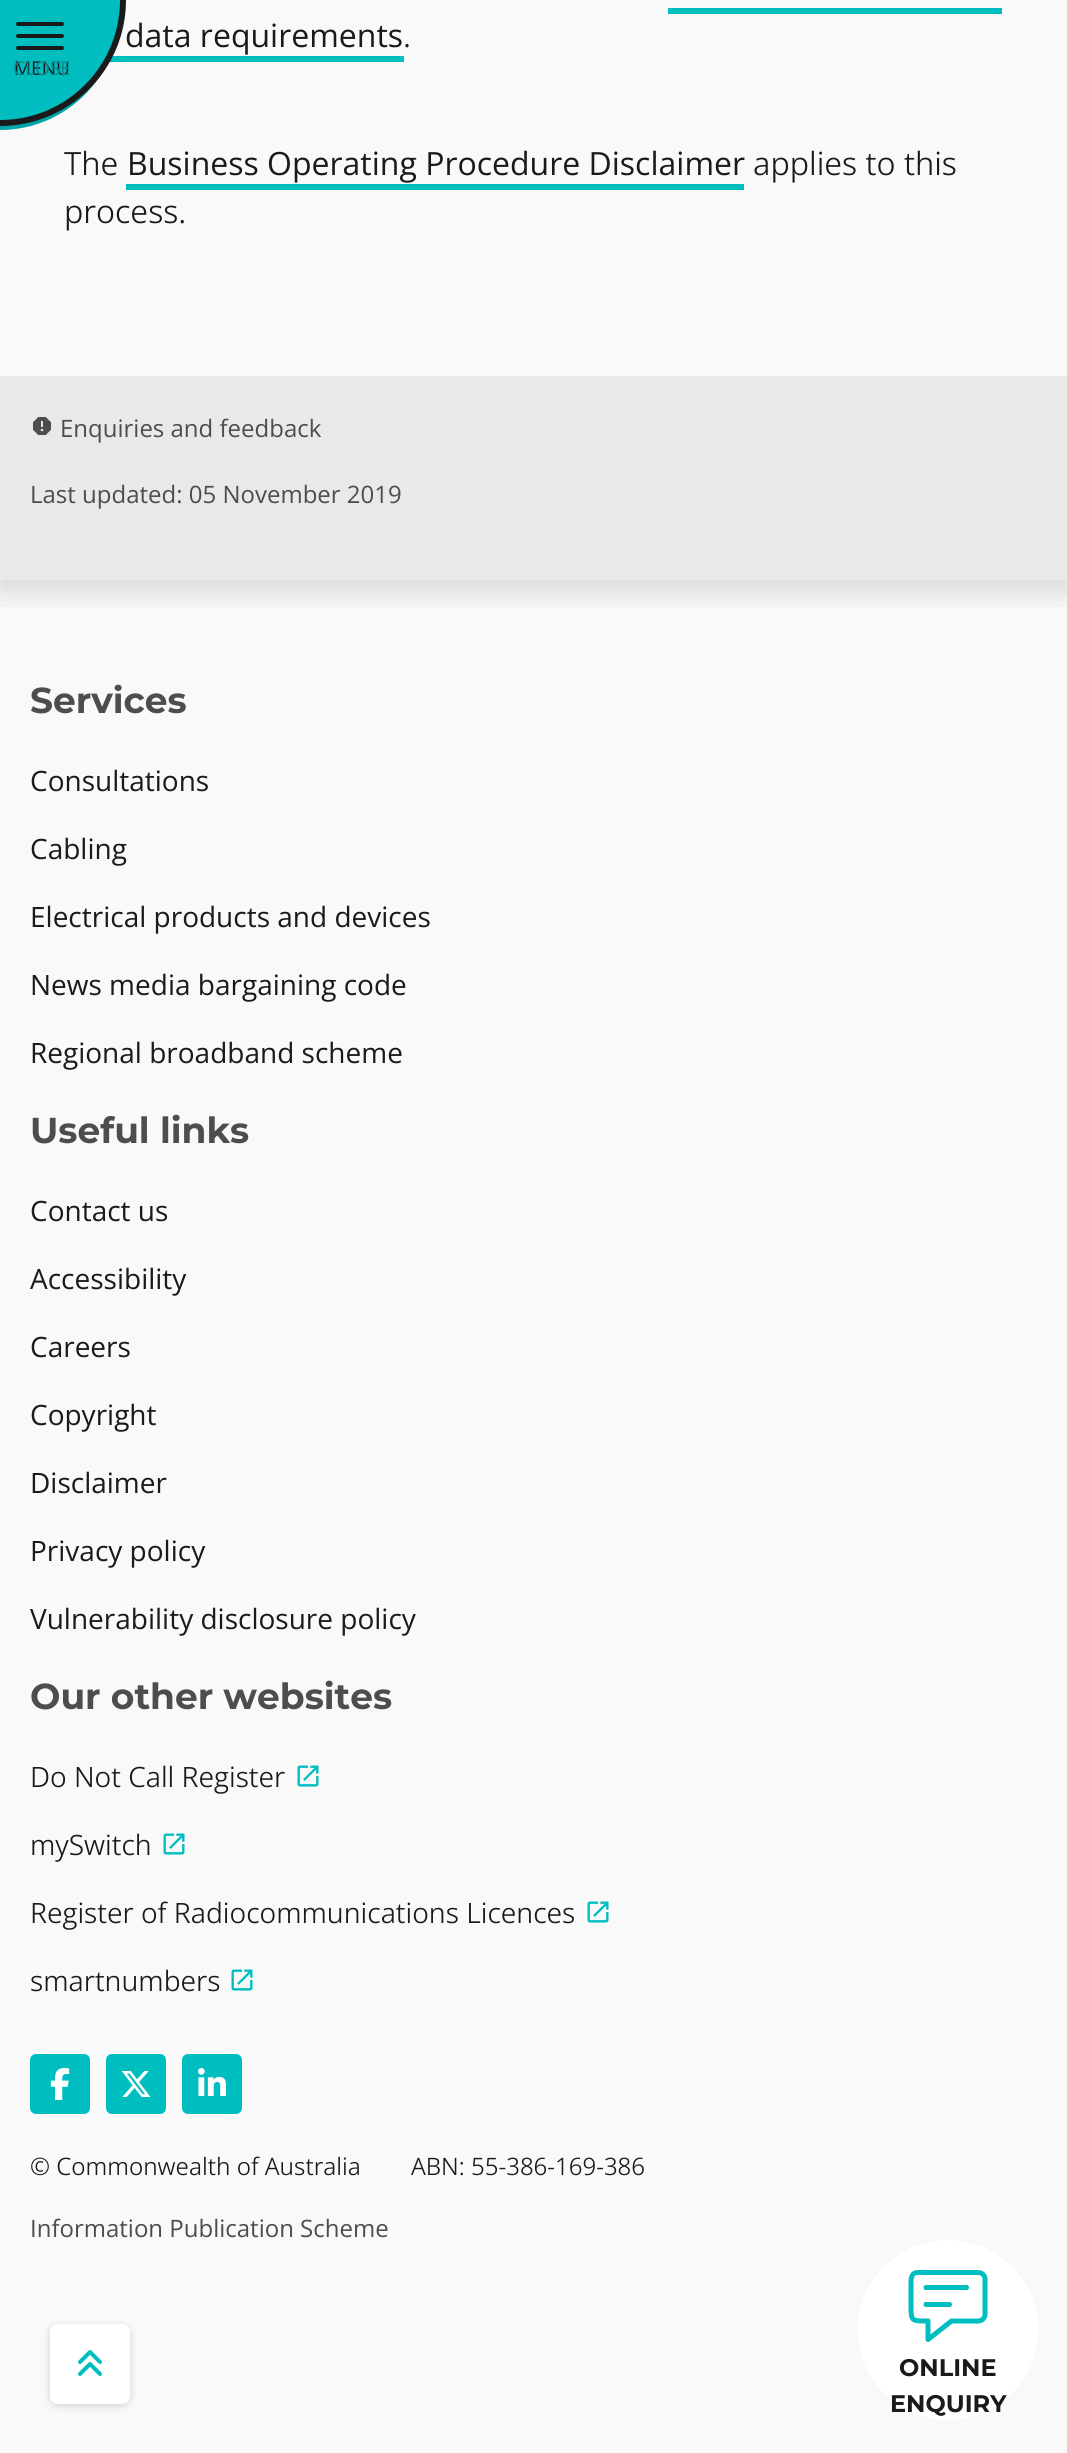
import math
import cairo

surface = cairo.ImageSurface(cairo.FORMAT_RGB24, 1067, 2453)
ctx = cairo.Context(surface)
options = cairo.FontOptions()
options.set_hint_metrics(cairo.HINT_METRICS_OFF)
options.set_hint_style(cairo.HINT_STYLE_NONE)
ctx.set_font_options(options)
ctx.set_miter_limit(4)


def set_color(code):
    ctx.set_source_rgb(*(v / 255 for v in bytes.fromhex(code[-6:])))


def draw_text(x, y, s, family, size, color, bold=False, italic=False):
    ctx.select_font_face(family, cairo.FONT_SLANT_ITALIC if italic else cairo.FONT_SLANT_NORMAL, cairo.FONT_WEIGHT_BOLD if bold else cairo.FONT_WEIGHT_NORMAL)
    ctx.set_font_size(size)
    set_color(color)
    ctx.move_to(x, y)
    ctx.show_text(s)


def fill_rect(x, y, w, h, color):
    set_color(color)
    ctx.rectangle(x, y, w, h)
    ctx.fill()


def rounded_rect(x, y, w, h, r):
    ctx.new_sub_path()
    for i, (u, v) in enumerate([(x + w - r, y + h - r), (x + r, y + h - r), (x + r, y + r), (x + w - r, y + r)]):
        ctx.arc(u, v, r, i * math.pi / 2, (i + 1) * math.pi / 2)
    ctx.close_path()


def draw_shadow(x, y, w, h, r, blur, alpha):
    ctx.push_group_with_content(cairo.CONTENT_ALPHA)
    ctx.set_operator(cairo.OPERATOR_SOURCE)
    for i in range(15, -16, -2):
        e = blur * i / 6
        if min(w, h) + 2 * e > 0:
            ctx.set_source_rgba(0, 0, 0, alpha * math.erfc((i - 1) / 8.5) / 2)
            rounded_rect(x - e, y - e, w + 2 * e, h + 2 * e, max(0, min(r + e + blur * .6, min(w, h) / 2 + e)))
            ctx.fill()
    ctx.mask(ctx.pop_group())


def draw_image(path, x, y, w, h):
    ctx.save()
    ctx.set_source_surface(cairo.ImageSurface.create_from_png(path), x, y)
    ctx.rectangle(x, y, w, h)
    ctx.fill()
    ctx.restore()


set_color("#f9f9f9")
ctx.paint()
ctx.save()
ctx.rectangle(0, 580, 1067, 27)
ctx.clip()
set_color("#000000")
draw_shadow(0, -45, 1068, 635, 0, 15, 0.15)
ctx.restore()
fill_rect(102, 56, 302, 6, "#00bec0")
set_color("#00a5a7")
ctx.new_path()
ctx.move_to(0, 120)
ctx.line_to(0, 130)
ctx.curve_to(66, 130, 120, 76, 120, 10)
ctx.curve_to(115, 72, 63, 120, 0, 120)
ctx.close_path()
ctx.fill()
set_color("#00bdc0")
ctx.new_path()
ctx.move_to(-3, -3)
ctx.line_to(123, -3)
ctx.line_to(123, 0)
ctx.curve_to(123, 68, 68, 123, 0, 123)
ctx.line_to(-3, 123)
ctx.close_path()
ctx.fill_preserve()
set_color("#1a1a1a")
ctx.set_line_width(6)
ctx.stroke()
rounded_rect(16, 34, 48, 4, 2)
ctx.fill()
rounded_rect(16, 22, 48, 4, 2)
ctx.fill()
rounded_rect(16, 46, 48, 4, 2)
ctx.fill()
draw_text(14, 75, "MENU", "Open Sans", 19, "#1a1a1a")
draw_text(13, 75, "CLOSE", "Open Sans", 19, "#08898b")
draw_text(125, 47, "data requirements", "Open Sans", 32, "#1a1a1a")
fill_rect(668, 8, 334, 6, "#00bec0")
draw_text(403, 47, ".", "Open Sans Light", 32, "#1a1a1a")
draw_text(64, 175, "The", "Open Sans Light", 32, "#1a1a1a")
draw_text(127, 175, "Business Operating Procedure Disclaimer", "Open Sans", 32, "#1a1a1a")
fill_rect(126, 184, 618, 6, "#00bec0")
draw_text(753, 175, "applies to this", "Open Sans Light", 32, "#1a1a1a")
draw_text(64, 223, "process.", "Open Sans Light", 32, "#1a1a1a")
fill_rect(0, 376, 1067, 204, "#e9e9e9")
draw_image("assets/img1.png", 33, 417, 18, 18)
draw_text(60, 437, "Enquiries and feedback", "Open Sans", 24, "#4d4d4f")
draw_text(30, 503, "Last updated: 05 November 2019", "Open Sans", 24, "#4d4d4f")
draw_text(30, 713, "Services", "Montserrat", 36, "#4d4d4f", bold=True)
draw_text(30, 791, "Consultations", "Open Sans", 28, "#1a1a1a")
draw_text(30, 859, "Cabling", "Open Sans", 28, "#1a1a1a")
draw_text(30, 927, "Electrical products and devices", "Open Sans", 28, "#1a1a1a")
draw_text(30, 995, "News media bargaining code", "Open Sans", 28, "#1a1a1a")
draw_text(30, 1063, "Regional broadband scheme", "Open Sans", 28, "#1a1a1a")
draw_text(30, 1143, "Useful links", "Montserrat", 36, "#4d4d4f", bold=True)
draw_text(30, 1221, "Contact us", "Open Sans", 28, "#1a1a1a")
draw_text(30, 1289, "Accessibility", "Open Sans", 28, "#1a1a1a")
draw_text(30, 1357, "Careers", "Open Sans", 28, "#1a1a1a")
draw_text(30, 1425, "Copyright", "Open Sans", 28, "#1a1a1a")
draw_text(30, 1493, "Disclaimer", "Open Sans", 28, "#1a1a1a")
draw_text(30, 1561, "Privacy policy", "Open Sans", 28, "#1a1a1a")
draw_text(30, 1629, "Vulnerability disclosure policy", "Open Sans", 28, "#1a1a1a")
draw_text(30, 1709, "Our other websites", "Montserrat", 36, "#4d4d4f", bold=True)
draw_text(30, 1787, "Do Not Call Register", "Open Sans Light", 28, "#1a1a1a")
draw_image("assets/img2.png", 297, 1765, 22, 22)
draw_text(30, 1855, "mySwitch", "Open Sans Light", 28, "#1a1a1a")
draw_image("assets/img2.png", 163, 1833, 22, 22)
draw_text(30, 1923, "Register of Radiocommunications Licences", "Open Sans Light", 28, "#1a1a1a")
draw_image("assets/img2.png", 587, 1901, 22, 22)
draw_text(30, 1991, "smartnumbers", "Open Sans Light", 28, "#1a1a1a")
draw_image("assets/img2.png", 231, 1969, 22, 22)
set_color("#00bec0")
rounded_rect(30, 2054, 60, 60, 6)
ctx.fill()
draw_image("assets/img3.png", 50, 2068, 20, 32)
rounded_rect(106, 2054, 60, 60, 6)
ctx.fill()
draw_image("assets/img4.png", 121, 2071, 30, 26)
rounded_rect(182, 2054, 60, 60, 6)
ctx.fill()
draw_image("assets/img5.png", 198, 2068, 28, 28)
draw_text(30, 2175, "© Commonwealth of Australia", "Open Sans Light", 24, "#1a1a1a")
draw_text(411, 2175, "ABN: 55-386-169-386", "Open Sans Light", 24, "#1a1a1a")
draw_text(30, 2237, "Information Publication Scheme", "Open Sans", 24, "#4d4d4f")
set_color("#000000")
draw_shadow(50, 2326, 80, 80, 8, 4, 0.15)
set_color("#ffffff")
rounded_rect(50, 2324, 80, 80, 8)
ctx.fill()
draw_image("assets/img6.png", 78, 2350, 24, 26)
ctx.arc(948, 2330, 90, 0, 2 * math.pi)
ctx.fill()
ctx.new_path()
ctx.move_to(918, 2272.5)
ctx.line_to(978, 2272.5)
ctx.curve_to(982, 2272.5, 985, 2275.5, 985, 2279)
ctx.line_to(985, 2314.5)
ctx.curve_to(985, 2318, 982, 2321, 978, 2321)
ctx.line_to(951.5, 2321)
ctx.line_to(928, 2339.5)
ctx.line_to(928, 2321)
ctx.curve_to(910.5, 2321, 911, 2321.5, 911, 2302.5)
ctx.line_to(911, 2285)
ctx.curve_to(911, 2280, 910.5, 2272.5, 918, 2272.5)
ctx.close_path()
set_color("#00bec0")
ctx.set_line_width(5)
ctx.set_line_cap(cairo.LINE_CAP_ROUND)
ctx.set_line_join(cairo.LINE_JOIN_ROUND)
ctx.stroke()
ctx.new_path()
ctx.move_to(926, 2287.5)
ctx.line_to(966.5, 2287.5)
ctx.move_to(926, 2304.5)
ctx.line_to(949.5, 2304.5)
ctx.stroke()
draw_text(899, 2376, "ONLINE", "Montserrat", 24, "#1a1a1a", bold=True)
draw_text(890, 2412, "ENQUIRY", "Montserrat", 24, "#1a1a1a", bold=True)
surface.write_to_png("output.png")
